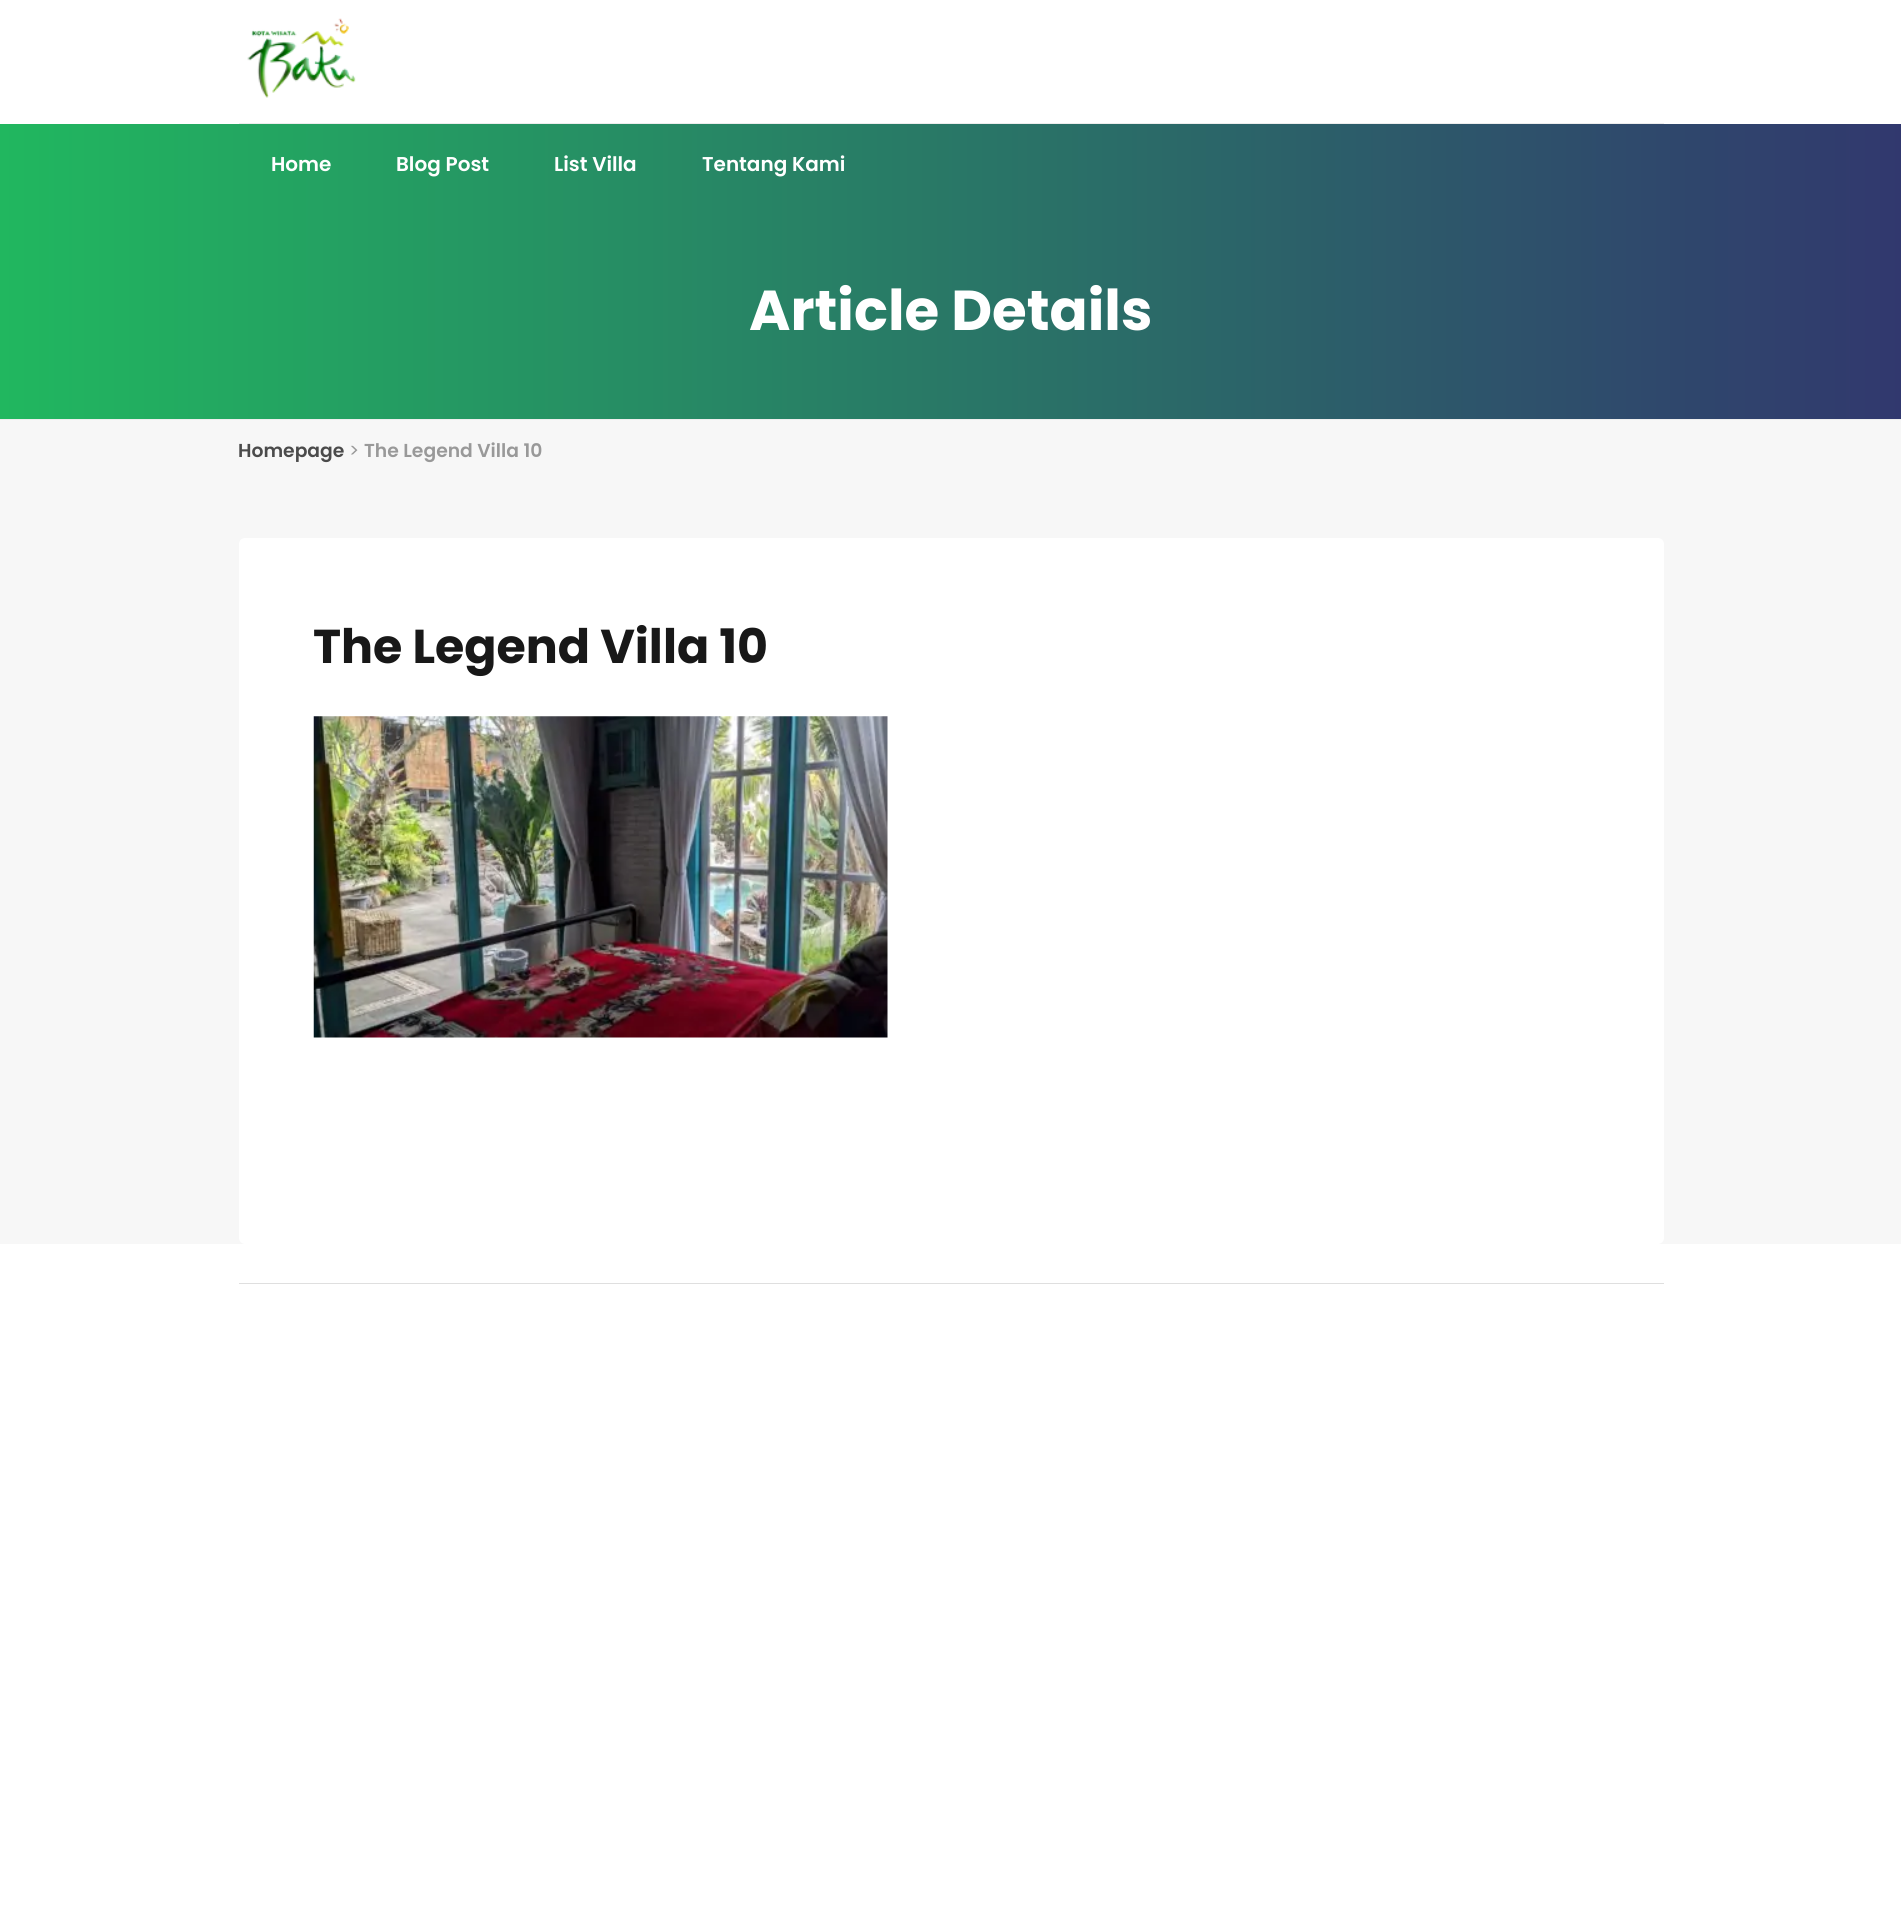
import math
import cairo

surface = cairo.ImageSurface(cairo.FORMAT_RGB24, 1901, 1919)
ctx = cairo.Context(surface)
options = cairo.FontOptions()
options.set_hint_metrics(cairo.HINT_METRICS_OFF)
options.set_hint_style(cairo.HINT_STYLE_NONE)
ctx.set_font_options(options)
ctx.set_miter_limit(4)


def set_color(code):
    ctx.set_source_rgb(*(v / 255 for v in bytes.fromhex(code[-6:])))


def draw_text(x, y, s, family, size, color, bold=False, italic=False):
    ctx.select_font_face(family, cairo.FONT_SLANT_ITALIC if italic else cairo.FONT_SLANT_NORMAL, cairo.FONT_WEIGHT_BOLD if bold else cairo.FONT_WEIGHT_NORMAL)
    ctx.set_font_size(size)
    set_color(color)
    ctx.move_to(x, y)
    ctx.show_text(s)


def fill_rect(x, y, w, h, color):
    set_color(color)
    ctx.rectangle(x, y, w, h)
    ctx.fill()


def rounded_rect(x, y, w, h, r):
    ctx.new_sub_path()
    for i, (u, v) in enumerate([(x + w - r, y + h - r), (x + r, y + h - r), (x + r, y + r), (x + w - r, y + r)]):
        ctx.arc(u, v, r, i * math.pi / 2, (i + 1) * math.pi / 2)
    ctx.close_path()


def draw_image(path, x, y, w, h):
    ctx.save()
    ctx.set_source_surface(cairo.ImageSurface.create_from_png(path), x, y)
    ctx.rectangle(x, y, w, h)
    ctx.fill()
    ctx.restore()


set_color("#ffffff")
ctx.paint()
fill_rect(239, 123, 1425, 1, "#ededed")
draw_image("assets/img1.png", 247, 18, 109, 80)
gradient = cairo.LinearGradient(0, 164, 1901, 164)
gradient.add_color_stop_rgba(0, 0.129, 0.718, 0.373, 1)
gradient.add_color_stop_rgba(1, 0.192, 0.22, 0.431, 1)
ctx.set_source(gradient)
ctx.rectangle(0, 124, 1901, 81)
ctx.fill()
draw_text(271, 171, "Home", "Poppins SemiBold", 20, "#ffffff")
draw_text(396, 171, "Blog Post", "Poppins SemiBold", 20, "#ffffff")
draw_text(554, 171, "List Villa", "Poppins SemiBold", 20, "#ffffff")
draw_text(702, 171, "Tentang Kami", "Poppins SemiBold", 20, "#ffffff")
gradient = cairo.LinearGradient(0, 312, 1901, 312)
gradient.add_color_stop_rgba(0, 0.129, 0.718, 0.373, 1)
gradient.add_color_stop_rgba(1, 0.192, 0.22, 0.431, 1)
ctx.set_source(gradient)
ctx.rectangle(0, 205, 1901, 214)
ctx.fill()
fill_rect(0, 419, 1901, 1, "#eeeeee")
draw_text(749, 330, "Article Details", "Poppins", 56.25, "#ffffff", bold=True)
fill_rect(0, 420, 1901, 824, "#f7f7f7")
draw_text(238, 457, "Homepage", "Poppins SemiBold", 18.75, "#4b4b4b")
draw_text(349, 457, ">", "Poppins", 18.75, "#999999")
draw_text(364, 457, "The Legend Villa 10", "Poppins SemiBold", 18.75, "#999999")
set_color("#ffffff")
rounded_rect(239, 538, 1425, 706, 6)
ctx.fill()
draw_text(313, 663, "The Legend Villa 10", "Poppins", 47.5, "#181818", bold=True)
draw_image("assets/img2.png", 313, 716, 575, 322)
fill_rect(239, 1283, 1425, 1, "#dfdfdf")
surface.write_to_png("output.png")
